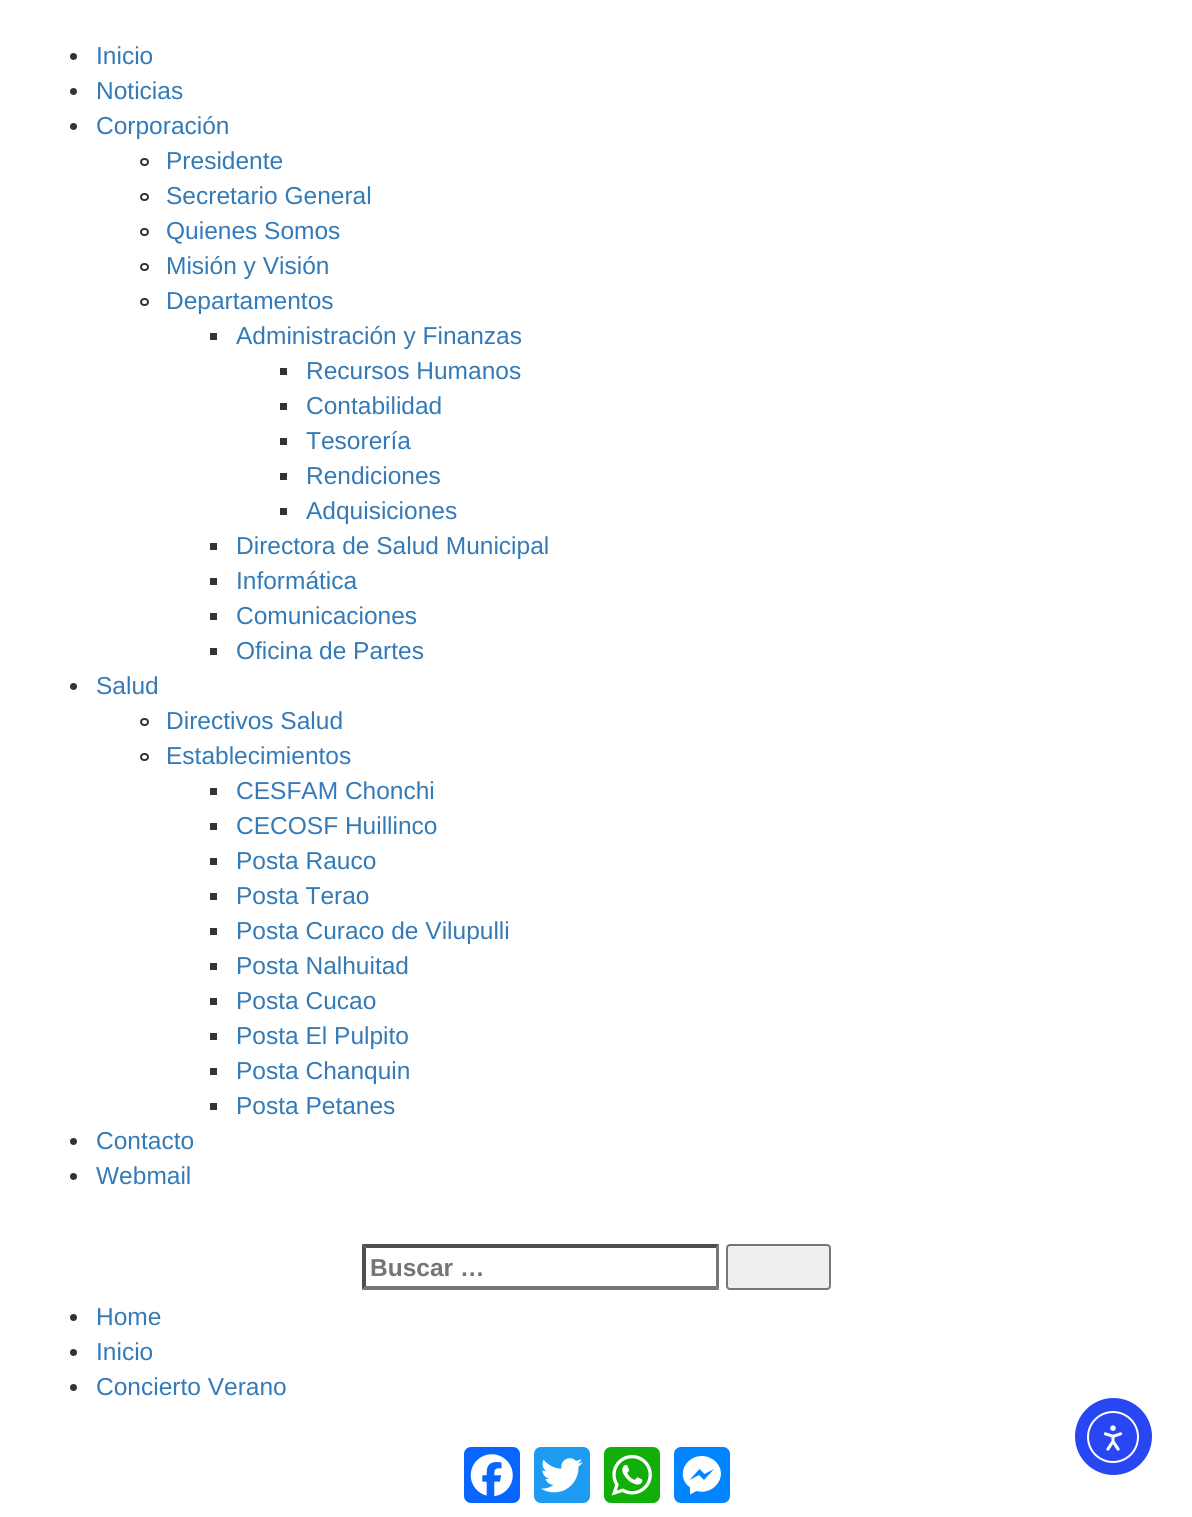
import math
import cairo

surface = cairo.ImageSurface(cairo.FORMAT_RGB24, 1192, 1517)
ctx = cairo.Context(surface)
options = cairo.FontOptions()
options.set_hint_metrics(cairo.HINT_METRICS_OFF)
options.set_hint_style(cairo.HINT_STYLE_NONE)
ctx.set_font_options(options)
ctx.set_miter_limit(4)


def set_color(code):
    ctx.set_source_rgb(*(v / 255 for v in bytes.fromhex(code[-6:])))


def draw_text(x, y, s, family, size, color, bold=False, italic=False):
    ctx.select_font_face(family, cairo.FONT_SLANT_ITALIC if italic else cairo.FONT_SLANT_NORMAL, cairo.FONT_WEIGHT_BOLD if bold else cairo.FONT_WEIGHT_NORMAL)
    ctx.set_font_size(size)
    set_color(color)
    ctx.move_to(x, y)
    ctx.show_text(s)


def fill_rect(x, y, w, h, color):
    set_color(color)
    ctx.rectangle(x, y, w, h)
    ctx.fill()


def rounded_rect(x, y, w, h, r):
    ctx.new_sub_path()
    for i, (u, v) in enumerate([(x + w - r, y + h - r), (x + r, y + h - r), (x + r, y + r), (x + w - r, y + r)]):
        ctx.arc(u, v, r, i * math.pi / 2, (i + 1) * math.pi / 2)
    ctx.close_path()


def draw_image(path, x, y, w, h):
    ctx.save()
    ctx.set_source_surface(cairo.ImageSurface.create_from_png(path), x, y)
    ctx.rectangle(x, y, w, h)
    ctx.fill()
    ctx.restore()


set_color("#ffffff")
ctx.paint()
set_color("#333333")
ctx.arc(73.5, 56.5, 3.5, 0, 2 * math.pi)
ctx.fill()
draw_text(96, 64, "Inicio", "Liberation Sans", 24.5, "#337ab7")
set_color("#333333")
ctx.new_path()
ctx.arc(73.5, 91.5, 3.5, 0, 2 * math.pi)
ctx.fill()
draw_text(96, 99, "Noticias", "Liberation Sans", 24.5, "#337ab7")
set_color("#333333")
ctx.new_path()
ctx.arc(73.5, 126.5, 3.5, 0, 2 * math.pi)
ctx.fill()
draw_text(96, 134, "Corporación", "Liberation Sans", 24.5, "#337ab7")
rounded_rect(141, 159, 7, 6, 3)
set_color("#333333")
ctx.stroke()
draw_text(166, 169, "Presidente", "Liberation Sans", 24.5, "#337ab7")
rounded_rect(141, 194, 7, 6, 3)
set_color("#333333")
ctx.stroke()
draw_text(166, 204, "Secretario General", "Liberation Sans", 24.5, "#337ab7")
rounded_rect(141, 229, 7, 6, 3)
set_color("#333333")
ctx.stroke()
draw_text(166, 239, "Quienes Somos", "Liberation Sans", 24.5, "#337ab7")
rounded_rect(141, 264, 7, 6, 3)
set_color("#333333")
ctx.stroke()
draw_text(166, 274, "Misión y Visión", "Liberation Sans", 24.5, "#337ab7")
rounded_rect(141, 299, 7, 6, 3)
set_color("#333333")
ctx.stroke()
draw_text(166, 309, "Departamentos", "Liberation Sans", 24.5, "#337ab7")
fill_rect(210, 333, 7, 7, "#333333")
draw_text(236, 344, "Administración y Finanzas", "Liberation Sans", 24.5, "#337ab7")
fill_rect(280, 368, 7, 7, "#333333")
draw_text(306, 379, "Recursos Humanos", "Liberation Sans", 24.5, "#337ab7")
fill_rect(280, 403, 7, 7, "#333333")
draw_text(306, 414, "Contabilidad", "Liberation Sans", 24.5, "#337ab7")
fill_rect(280, 438, 7, 7, "#333333")
draw_text(306, 449, "Tesorería", "Liberation Sans", 24.5, "#337ab7")
fill_rect(280, 473, 7, 7, "#333333")
draw_text(306, 484, "Rendiciones", "Liberation Sans", 24.5, "#337ab7")
fill_rect(280, 508, 7, 7, "#333333")
draw_text(306, 519, "Adquisiciones", "Liberation Sans", 24.5, "#337ab7")
fill_rect(210, 543, 7, 7, "#333333")
draw_text(236, 554, "Directora de Salud Municipal", "Liberation Sans", 24.5, "#337ab7")
fill_rect(210, 578, 7, 7, "#333333")
draw_text(236, 589, "Informática", "Liberation Sans", 24.5, "#337ab7")
fill_rect(210, 613, 7, 7, "#333333")
draw_text(236, 624, "Comunicaciones", "Liberation Sans", 24.5, "#337ab7")
fill_rect(210, 648, 7, 7, "#333333")
draw_text(236, 659, "Oficina de Partes", "Liberation Sans", 24.5, "#337ab7")
set_color("#333333")
ctx.new_path()
ctx.arc(73.5, 686.5, 3.5, 0, 2 * math.pi)
ctx.fill()
draw_text(96, 694, "Salud", "Liberation Sans", 24.5, "#337ab7")
rounded_rect(141, 719, 7, 6, 3)
set_color("#333333")
ctx.stroke()
draw_text(166, 729, "Directivos Salud", "Liberation Sans", 24.5, "#337ab7")
rounded_rect(141, 754, 7, 6, 3)
set_color("#333333")
ctx.stroke()
draw_text(166, 764, "Establecimientos", "Liberation Sans", 24.5, "#337ab7")
fill_rect(210, 788, 7, 7, "#333333")
draw_text(236, 799, "CESFAM Chonchi", "Liberation Sans", 24.5, "#337ab7")
fill_rect(210, 823, 7, 7, "#333333")
draw_text(236, 834, "CECOSF Huillinco", "Liberation Sans", 24.5, "#337ab7")
fill_rect(210, 858, 7, 7, "#333333")
draw_text(236, 869, "Posta Rauco", "Liberation Sans", 24.5, "#337ab7")
fill_rect(210, 893, 7, 7, "#333333")
draw_text(236, 904, "Posta Terao", "Liberation Sans", 24.5, "#337ab7")
fill_rect(210, 928, 7, 7, "#333333")
draw_text(236, 939, "Posta Curaco de Vilupulli", "Liberation Sans", 24.5, "#337ab7")
fill_rect(210, 963, 7, 7, "#333333")
draw_text(236, 974, "Posta Nalhuitad", "Liberation Sans", 24.5, "#337ab7")
fill_rect(210, 998, 7, 7, "#333333")
draw_text(236, 1009, "Posta Cucao", "Liberation Sans", 24.5, "#337ab7")
fill_rect(210, 1033, 7, 7, "#333333")
draw_text(236, 1044, "Posta El Pulpito", "Liberation Sans", 24.5, "#337ab7")
fill_rect(210, 1068, 7, 7, "#333333")
draw_text(236, 1079, "Posta Chanquin", "Liberation Sans", 24.5, "#337ab7")
fill_rect(210, 1103, 7, 7, "#333333")
draw_text(236, 1114, "Posta Petanes", "Liberation Sans", 24.5, "#337ab7")
set_color("#333333")
ctx.new_path()
ctx.arc(73.5, 1141.5, 3.5, 0, 2 * math.pi)
ctx.fill()
draw_text(96, 1149, "Contacto", "Liberation Sans", 24.5, "#337ab7")
set_color("#333333")
ctx.new_path()
ctx.arc(73.5, 1176.5, 3.5, 0, 2 * math.pi)
ctx.fill()
draw_text(96, 1184, "Webmail", "Liberation Sans", 24.5, "#337ab7")
set_color("#4f4f4f")
ctx.new_path()
ctx.move_to(362, 1244)
ctx.line_to(719, 1244)
ctx.line_to(716, 1248)
ctx.line_to(366, 1248)
ctx.close_path()
ctx.fill()
set_color("#767676")
ctx.new_path()
ctx.move_to(719, 1244)
ctx.line_to(719, 1290)
ctx.line_to(716, 1286)
ctx.line_to(716, 1248)
ctx.close_path()
ctx.fill()
ctx.new_path()
ctx.move_to(719, 1290)
ctx.line_to(362, 1290)
ctx.line_to(366, 1286)
ctx.line_to(716, 1286)
ctx.close_path()
ctx.fill()
set_color("#4f4f4f")
ctx.new_path()
ctx.move_to(362, 1290)
ctx.line_to(362, 1244)
ctx.line_to(366, 1248)
ctx.line_to(366, 1286)
ctx.close_path()
ctx.fill()
draw_text(370, 1276, "Buscar …", "Liberation Sans", 24.5, "#757575", bold=True)
set_color("#efefef")
rounded_rect(727, 1245, 103, 44, 3)
ctx.fill_preserve()
set_color("#767676")
ctx.stroke()
set_color("#333333")
ctx.arc(73.5, 1317.5, 3.5, 0, 2 * math.pi)
ctx.fill()
draw_text(96, 1325, "Home", "Liberation Sans", 24.5, "#337ab7")
set_color("#333333")
ctx.new_path()
ctx.arc(73.5, 1352.5, 3.5, 0, 2 * math.pi)
ctx.fill()
draw_text(96, 1360, "Inicio", "Liberation Sans", 24.5, "#337ab7")
set_color("#333333")
ctx.new_path()
ctx.arc(73.5, 1387.5, 3.5, 0, 2 * math.pi)
ctx.fill()
draw_text(96, 1395, "Concierto Verano", "Liberation Sans", 24.5, "#337ab7")
set_color("#0866ff")
rounded_rect(464, 1447, 56, 56, 7)
ctx.fill()
draw_image("assets/img1.png", 470, 1454, 43, 43)
set_color("#1d9bf0")
rounded_rect(534, 1447, 56, 56, 7)
ctx.fill()
draw_image("assets/img2.png", 541, 1458, 42, 35)
set_color("#12af0a")
rounded_rect(604, 1447, 56, 56, 7)
ctx.fill()
draw_image("assets/img3.png", 611, 1455, 41, 41)
set_color("#0084ff")
rounded_rect(674, 1447, 56, 56, 7)
ctx.fill()
set_color("#ffffff")
ctx.new_path()
ctx.move_to(702, 1456)
ctx.curve_to(684.5, 1456, 675.5, 1477, 690, 1487.5)
ctx.line_to(690, 1494.5)
ctx.line_to(696.5, 1491)
ctx.curve_to(714, 1496, 730, 1475, 715, 1461)
ctx.curve_to(711.5, 1458, 706.5, 1456, 702, 1456)
ctx.move_to(704, 1480)
ctx.line_to(699, 1475)
ctx.line_to(689.5, 1480)
ctx.line_to(699.5, 1469)
ctx.line_to(704.5, 1474)
ctx.line_to(714, 1469)
ctx.close_path()
ctx.fill()
set_color("#2847f3")
ctx.arc(1113.5, 1436.5, 38.5, 0, 2 * math.pi)
ctx.fill()
ctx.arc(1113, 1437, 25, 0, 2 * math.pi)
set_color("#ffffff")
ctx.stroke()
draw_image("assets/img4.png", 1103, 1425, 20, 26)
surface.write_to_png("output.png")
